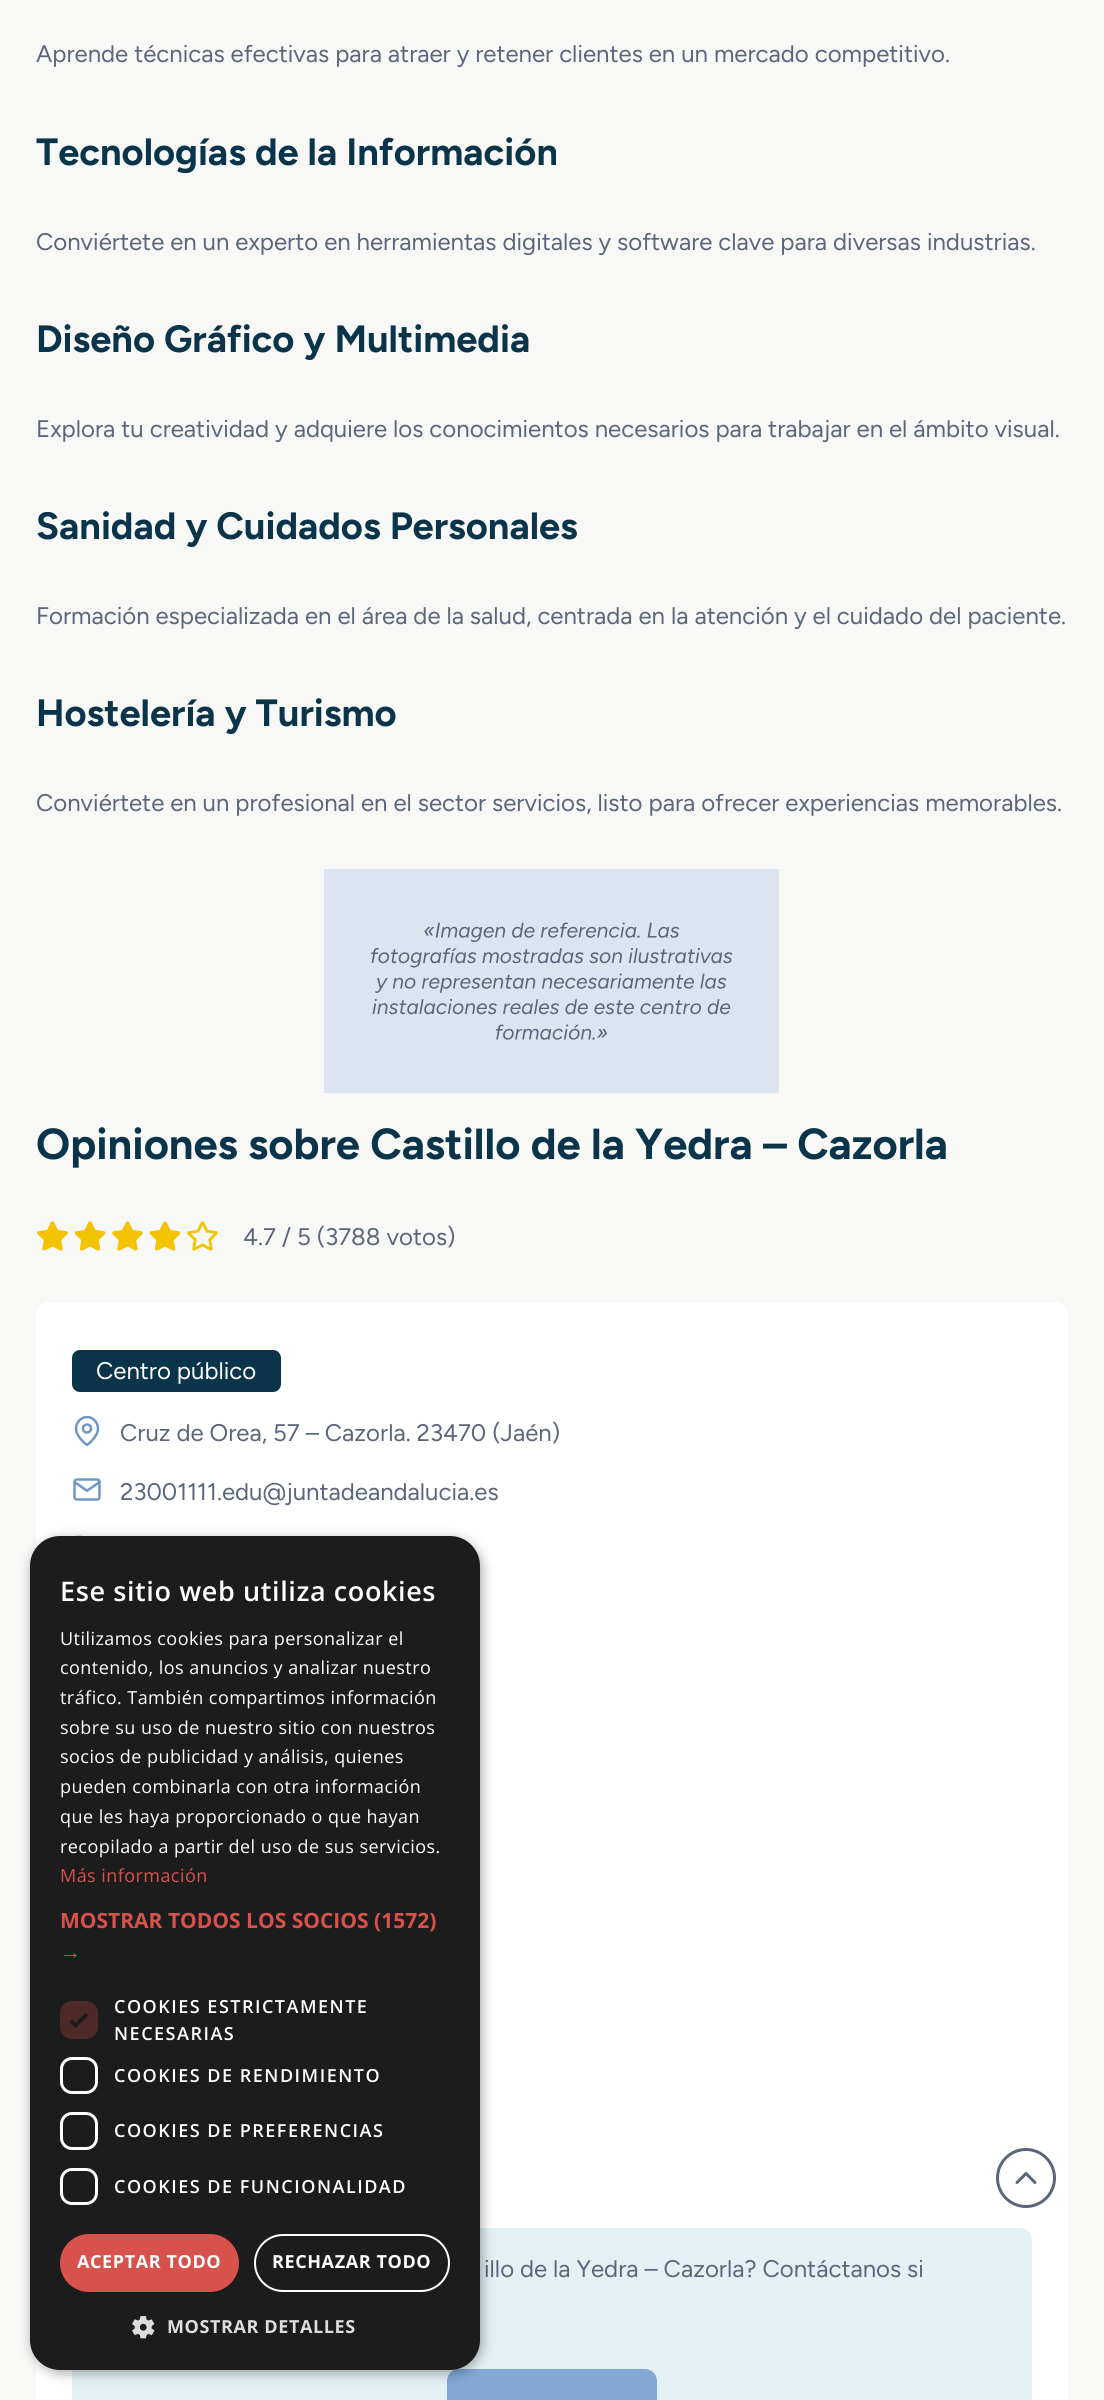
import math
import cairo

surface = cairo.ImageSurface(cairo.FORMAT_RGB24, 1104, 2400)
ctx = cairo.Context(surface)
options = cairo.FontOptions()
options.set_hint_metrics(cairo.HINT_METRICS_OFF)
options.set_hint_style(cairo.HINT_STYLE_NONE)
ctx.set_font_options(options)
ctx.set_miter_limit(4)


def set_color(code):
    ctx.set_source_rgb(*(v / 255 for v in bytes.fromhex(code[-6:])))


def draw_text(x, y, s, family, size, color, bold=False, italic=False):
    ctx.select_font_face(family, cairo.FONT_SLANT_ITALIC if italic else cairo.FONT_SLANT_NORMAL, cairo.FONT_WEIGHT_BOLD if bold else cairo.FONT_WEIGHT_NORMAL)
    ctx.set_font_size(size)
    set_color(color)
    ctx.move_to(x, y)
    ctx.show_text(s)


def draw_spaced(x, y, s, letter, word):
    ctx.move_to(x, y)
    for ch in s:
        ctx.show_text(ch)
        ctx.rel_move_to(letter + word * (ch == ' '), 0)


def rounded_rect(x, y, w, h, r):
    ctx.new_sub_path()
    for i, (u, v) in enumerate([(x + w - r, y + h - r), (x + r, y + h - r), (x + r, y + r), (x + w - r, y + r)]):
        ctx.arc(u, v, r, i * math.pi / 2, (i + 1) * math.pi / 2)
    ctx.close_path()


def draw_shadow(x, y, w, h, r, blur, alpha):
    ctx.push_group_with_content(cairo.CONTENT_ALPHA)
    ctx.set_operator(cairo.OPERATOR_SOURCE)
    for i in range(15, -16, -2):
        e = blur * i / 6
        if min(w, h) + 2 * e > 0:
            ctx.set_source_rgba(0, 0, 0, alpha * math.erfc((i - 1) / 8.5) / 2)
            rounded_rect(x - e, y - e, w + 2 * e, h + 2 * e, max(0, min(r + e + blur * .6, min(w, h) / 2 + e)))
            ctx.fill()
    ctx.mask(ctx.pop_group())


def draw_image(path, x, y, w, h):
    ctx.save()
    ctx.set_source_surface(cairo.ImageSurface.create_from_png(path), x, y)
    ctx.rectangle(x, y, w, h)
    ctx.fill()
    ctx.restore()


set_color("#f8f8f7")
ctx.paint()
draw_text(36, 62, "Aprende técnicas efectivas para atraer y retener clientes en un mercado competitivo.", "Figtree", 24, "#5b667a")
draw_text(36, 165, "Tecnologías de la Información", "Figtree", 38, "#09344a", bold=True)
draw_text(36, 250, "Conviértete en un experto en herramientas digitales y software clave para diversas industrias.", "Figtree", 24, "#5b667a")
draw_text(36, 352, "Diseño Gráfico y Multimedia", "Figtree", 38, "#09344a", bold=True)
draw_text(36, 437, "Explora tu creatividad y adquiere los conocimientos necesarios para trabajar en el ámbito visual.", "Figtree", 24, "#5b667a")
draw_text(36, 539, "Sanidad y Cuidados Personales", "Figtree", 38, "#09344a", bold=True)
draw_text(36, 624, "Formación especializada en el área de la salud, centrada en la atención y el cuidado del paciente.", "Figtree", 24, "#5b667a")
draw_text(36, 726, "Hostelería y Turismo", "Figtree", 38, "#09344a", bold=True)
draw_text(36, 811, "Conviértete en un profesional en el sector servicios, listo para ofrecer experiencias memorables.", "Figtree", 24, "#5b667a")
draw_image("assets/img1.png", 324, 869, 455, 225)
draw_text(36, 1159, "Opiniones sobre Castillo de la Yedra – Cazorla", "Figtree", 43.4, "#09344a", bold=True)
draw_image("assets/img2.png", 37, 1221, 31, 30)
draw_image("assets/img3.png", 74, 1221, 32, 30)
draw_image("assets/img2.png", 112, 1221, 31, 30)
draw_image("assets/img3.png", 149, 1221, 32, 30)
draw_image("assets/img4.png", 187, 1221, 31, 30)
draw_text(243, 1245, "4.7 / 5 (3788 votos)", "Figtree", 24, "#5b667a")
set_color("#ffffff")
rounded_rect(36, 1302, 1032, 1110, 12)
ctx.fill()
set_color("#09344a")
rounded_rect(72, 1350, 209, 42, 8)
ctx.fill()
draw_text(96, 1379, "Centro público", "Figtree", 24, "#ffffff")
ctx.save()
ctx.rectangle(72, 1416, 30, 30)
ctx.clip()
ctx.new_path()
ctx.move_to(98, 1428.5)
ctx.curve_to(98, 1437, 87, 1445, 87, 1445)
ctx.curve_to(87, 1445, 76, 1437, 76, 1428.5)
ctx.curve_to(76, 1422.5, 81, 1417, 87, 1417)
ctx.curve_to(93, 1417, 98, 1422.5, 98, 1428.5)
ctx.close_path()
set_color("#7096c5")
ctx.set_line_width(2.5)
ctx.set_line_cap(cairo.LINE_CAP_ROUND)
ctx.set_line_join(cairo.LINE_JOIN_ROUND)
ctx.stroke()
ctx.restore()
ctx.arc(87, 1428.5, 4, 0, 2 * math.pi)
set_color("#7096c5")
ctx.set_line_width(2.5)
ctx.stroke()
draw_text(120, 1441, "Cruz de Orea, 57 – Cazorla. 23470 (Jaén)", "Figtree", 24, "#5b667a")
draw_image("assets/img5.png", 73, 1478, 28, 23)
draw_text(120, 1500, "23001111.edu@juntadeandalucia.es", "Figtree", 24, "#5b667a")
draw_image("assets/img6.png", 76, 1535, 6, 1)
set_color("#e3f1f4")
rounded_rect(72, 2228, 960, 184, 12)
ctx.fill()
draw_text(484, 2277, "illo de la Yedra – Cazorla? Contáctanos si", "Figtree", 24, "#5b667a")
set_color("#83a8d6")
rounded_rect(447, 2369, 210, 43, 12)
ctx.fill()
set_color("#000000")
draw_shadow(32, 1539, 450, 834, 30, 6, 0.35)
set_color("#1c1c1c")
rounded_rect(30, 1536, 450, 834, 30)
ctx.fill()
ctx.select_font_face("Open Sans SemiBold")
ctx.set_font_size(27)
set_color("#ffffff")
draw_spaced(60, 1601, "Ese sitio web utiliza cookies", 0.6, 0)
ctx.select_font_face("Open Sans")
ctx.set_font_size(18)
draw_spaced(60, 1645, "Utilizamos cookies para personalizar el", 0.45, 0)
draw_spaced(60, 1674, "contenido, los anuncios y analizar nuestro", 0.45, 0)
draw_spaced(60, 1704, "tráfico. También compartimos información", 0.45, 0)
draw_spaced(60, 1734, "sobre su uso de nuestro sitio con nuestros", 0.45, 0)
draw_spaced(60, 1763, "socios de publicidad y análisis, quienes", 0.45, 0)
draw_spaced(60, 1793, "pueden combinarla con otra información", 0.45, 0)
draw_spaced(60, 1823, "que les haya proporcionado o que hayan", 0.45, 0)
draw_spaced(60, 1853, "recopilado a partir del uso de sus servicios.", 0.45, 0)
set_color("#d8524c")
draw_spaced(60, 1882, "Más información", 0.45, 0)
draw_text(60, 1928, "MOSTRAR TODOS LOS SOCIOS (1572)", "Open Sans", 21, "#d8524c", bold=True)
draw_text(60, 1959, "→", "Liberation Sans", 21, "#d8524c", bold=True)
set_color("#4d2a28")
rounded_rect(60, 2001, 38, 38, 12)
ctx.fill()
ctx.new_path()
ctx.move_to(70.5, 2020.5)
ctx.line_to(75.5, 2025.5)
ctx.line_to(87, 2014)
set_color("#1c1c1c")
ctx.set_line_width(3.9)
ctx.stroke()
ctx.select_font_face("Open Sans SemiBold")
ctx.set_font_size(18)
set_color("#ffffff")
draw_spaced(114, 2013, "COOKIES ESTRICTAMENTE", 1.5, 0)
draw_spaced(114, 2040, "NECESARIAS", 1.5, 0)
rounded_rect(61.5, 2058.5, 35, 34, 10.5)
ctx.set_line_width(3)
ctx.stroke()
draw_spaced(114, 2082, "COOKIES DE RENDIMIENTO", 1.5, 0)
rounded_rect(61.5, 2113.5, 35, 35, 10.5)
ctx.stroke()
draw_spaced(114, 2137, "COOKIES DE PREFERENCIAS", 1.5, 0)
rounded_rect(61.5, 2169.5, 35, 34, 10.5)
ctx.stroke()
draw_spaced(114, 2193, "COOKIES DE FUNCIONALIDAD", 1.5, 0)
set_color("#d8524c")
rounded_rect(60, 2234, 179, 58, 29)
ctx.fill()
ctx.select_font_face("Open Sans", cairo.FONT_SLANT_NORMAL, cairo.FONT_WEIGHT_BOLD)
set_color("#ffffff")
draw_spaced(77, 2268, "ACEPTAR TODO", 0.6, 0)
rounded_rect(255, 2235, 194, 56, 28)
ctx.set_line_width(2)
ctx.stroke()
draw_spaced(272, 2268, "RECHAZAR TODO", 0.6, 0)
draw_image("assets/img7.png", 132, 2316, 23, 23)
set_color("#dddddd")
draw_spaced(167, 2333, "MOSTRAR DETALLES", 0.6, 0)
ctx.new_path()
ctx.arc(1026, 2178, 28.5, 0, 2 * math.pi)
set_color("#5b667a")
ctx.set_line_width(3)
ctx.stroke()
draw_image("assets/img8.png", 1015, 2172, 22, 12)
surface.write_to_png("output.png")
